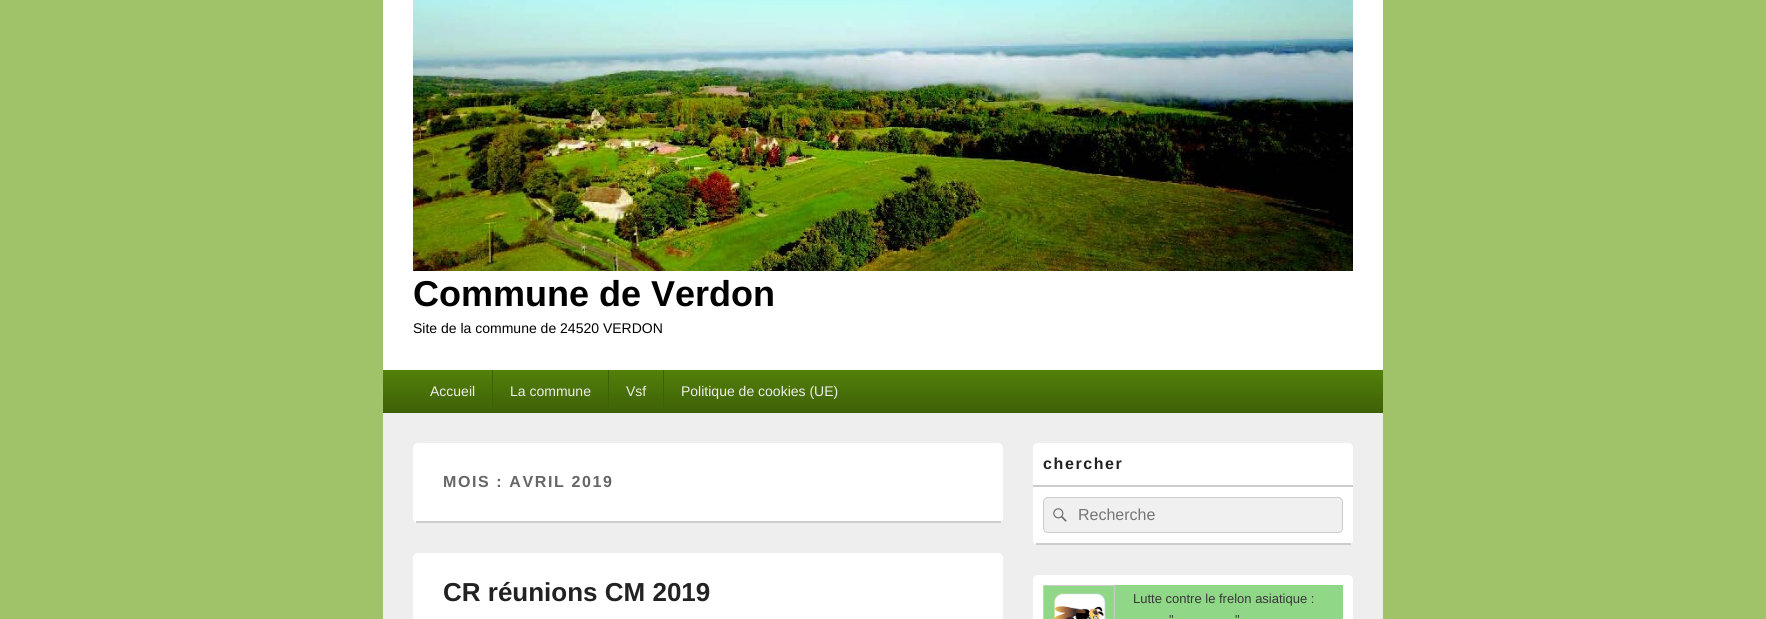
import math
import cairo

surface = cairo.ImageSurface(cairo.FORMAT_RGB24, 1766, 619)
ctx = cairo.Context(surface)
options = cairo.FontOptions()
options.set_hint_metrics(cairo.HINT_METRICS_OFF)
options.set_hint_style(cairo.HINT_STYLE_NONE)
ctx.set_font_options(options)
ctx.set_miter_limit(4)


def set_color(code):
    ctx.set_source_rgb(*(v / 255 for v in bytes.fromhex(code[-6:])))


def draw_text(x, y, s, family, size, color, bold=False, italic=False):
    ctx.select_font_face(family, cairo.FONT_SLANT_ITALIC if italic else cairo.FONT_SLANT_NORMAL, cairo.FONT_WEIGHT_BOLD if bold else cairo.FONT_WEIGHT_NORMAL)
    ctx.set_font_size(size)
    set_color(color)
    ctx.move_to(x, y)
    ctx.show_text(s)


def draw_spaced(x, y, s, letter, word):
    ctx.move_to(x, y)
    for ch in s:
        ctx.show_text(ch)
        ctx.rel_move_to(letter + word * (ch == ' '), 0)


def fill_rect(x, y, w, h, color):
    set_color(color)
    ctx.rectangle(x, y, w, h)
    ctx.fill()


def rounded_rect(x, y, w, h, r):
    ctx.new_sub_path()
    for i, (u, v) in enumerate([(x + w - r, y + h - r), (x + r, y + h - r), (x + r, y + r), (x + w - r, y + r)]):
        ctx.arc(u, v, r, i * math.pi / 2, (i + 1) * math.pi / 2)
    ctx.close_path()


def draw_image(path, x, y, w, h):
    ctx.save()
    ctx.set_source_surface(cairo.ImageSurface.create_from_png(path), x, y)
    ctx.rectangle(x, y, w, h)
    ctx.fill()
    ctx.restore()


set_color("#a0c269")
ctx.paint()
fill_rect(383, 413, 1000, 206, "#eeeeee")
fill_rect(383, 0, 1000, 370, "#ffffff")
draw_image("assets/img1.png", 413, 0, 940, 271)
draw_text(413, 306, "Commune de Verdon", "Liberation Sans", 36, "#000000", bold=True)
draw_text(413, 333, "Site de la commune de 24520 VERDON", "Liberation Sans", 14, "#000000")
gradient = cairo.LinearGradient(883, 370, 883, 412)
gradient.add_color_stop_rgba(0, 0.325, 0.506, 0.039, 1)
gradient.add_color_stop_rgba(1, 0.243, 0.38, 0.027, 1)
ctx.set_source(gradient)
ctx.rectangle(383, 370, 1000, 42)
ctx.fill()
fill_rect(383, 412, 1000, 1, "#3e6107")
draw_text(430, 396, "Accueil", "Liberation Sans", 14, "#eeeeee")
fill_rect(492, 370, 1, 42, "#3e6107")
draw_text(510, 396, "La commune", "Liberation Sans", 14, "#eeeeee")
fill_rect(608, 370, 1, 42, "#3e6107")
draw_text(626, 396, "Vsf", "Liberation Sans", 14, "#eeeeee")
fill_rect(663, 370, 1, 42, "#3e6107")
draw_text(681, 396, "Politique de cookies (UE)", "Liberation Sans", 14, "#eeeeee")
set_color("#ffffff")
rounded_rect(413, 443, 590, 80, 5)
ctx.fill()
fill_rect(416, 521, 585, 2, "#cccccc")
ctx.select_font_face("Liberation Sans", cairo.FONT_SLANT_NORMAL, cairo.FONT_WEIGHT_BOLD)
ctx.set_font_size(16)
set_color("#666666")
draw_spaced(443, 487, "MOIS : AVRIL 2019", 1.6, 0)
set_color("#ffffff")
rounded_rect(413, 553, 590, 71, 5)
ctx.fill()
draw_text(443, 601, "CR réunions CM 2019", "Liberation Sans", 26, "#222222", bold=True)
set_color("#ffffff")
rounded_rect(1033, 443, 320, 102, 5)
ctx.fill()
fill_rect(1036, 543, 315, 2, "#cccccc")
fill_rect(1033, 485, 320, 2, "#cccccc")
ctx.set_font_size(16)
set_color("#222222")
draw_spaced(1043, 469, "chercher", 1.6, 0)
set_color("#f0f0f0")
rounded_rect(1043.5, 497.5, 299, 35, 4.5)
ctx.fill_preserve()
set_color("#cccccc")
ctx.set_line_width(1)
ctx.stroke()
draw_image("assets/img2.png", 1053, 508, 14, 14)
draw_text(1078, 520, "Recherche", "Liberation Sans", 16, "#757575")
set_color("#ffffff")
rounded_rect(1033, 575, 320, 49, 5)
ctx.fill()
fill_rect(1044, 585, 299, 34, "#90d888")
ctx.rectangle(1043.5, 585.5, 71, 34)
set_color("#cccccc")
ctx.stroke()
draw_image("assets/img3.png", 1052, 593, 54, 26)
draw_text(1133, 603, "Lutte contre le frelon asiatique :", "Liberation Sans", 13, "#373737")
draw_text(1169, 624, "\"", "Liberation Sans", 13, "#373737")
draw_text(1235, 624, "\"", "Liberation Sans", 13, "#373737")
surface.write_to_png("output.png")
